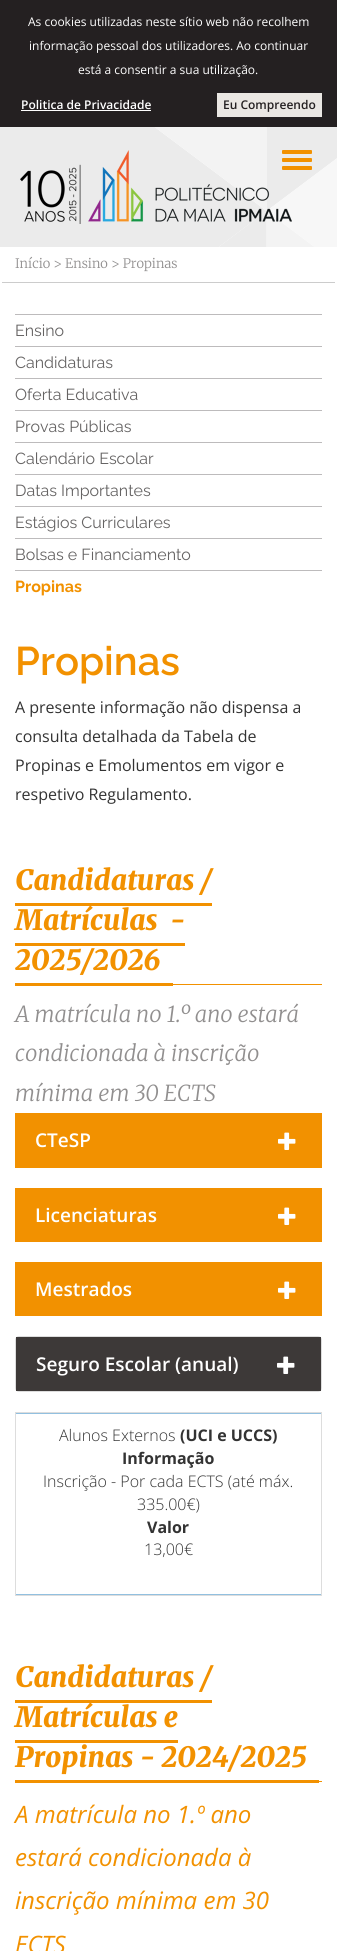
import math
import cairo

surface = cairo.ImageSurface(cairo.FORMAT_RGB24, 337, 1951)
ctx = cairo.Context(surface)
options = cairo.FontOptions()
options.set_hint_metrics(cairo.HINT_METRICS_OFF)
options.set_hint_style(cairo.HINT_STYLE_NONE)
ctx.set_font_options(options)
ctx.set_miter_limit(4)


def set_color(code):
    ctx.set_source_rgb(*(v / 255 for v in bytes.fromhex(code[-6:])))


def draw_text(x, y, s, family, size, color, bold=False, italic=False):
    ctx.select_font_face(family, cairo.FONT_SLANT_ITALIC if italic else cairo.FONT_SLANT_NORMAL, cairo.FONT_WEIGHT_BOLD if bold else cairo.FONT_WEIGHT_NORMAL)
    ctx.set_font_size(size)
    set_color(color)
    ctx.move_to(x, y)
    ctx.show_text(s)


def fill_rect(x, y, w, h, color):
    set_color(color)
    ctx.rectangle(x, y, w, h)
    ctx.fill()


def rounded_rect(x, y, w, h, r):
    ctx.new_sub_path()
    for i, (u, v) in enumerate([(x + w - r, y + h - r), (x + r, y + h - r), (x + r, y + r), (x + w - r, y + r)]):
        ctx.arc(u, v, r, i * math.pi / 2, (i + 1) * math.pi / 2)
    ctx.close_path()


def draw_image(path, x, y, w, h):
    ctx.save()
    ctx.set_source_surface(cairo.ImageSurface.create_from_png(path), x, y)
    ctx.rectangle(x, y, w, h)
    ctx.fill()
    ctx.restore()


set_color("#ffffff")
ctx.paint()
fill_rect(0, 0, 337, 127, "#242021")
draw_text(28, 26, "As cookies utilizadas neste sítio web não recolhem", "Open Sans", 12, "#ffffff")
draw_text(29, 50, "informação pessoal dos utilizadores. Ao continuar", "Open Sans", 12, "#ffffff")
draw_text(78, 74, "está a consentir a sua utilização.", "Open Sans", 12, "#ffffff")
draw_text(21, 109, "Politica de Privacidade", "Open Sans SemiBold", 12, "#ffffff")
fill_rect(21, 110, 130, 1, "#ffffff")
fill_rect(217, 93, 105, 24, "#eae7e3")
draw_text(223, 109, "Eu Compreendo", "Open Sans SemiBold", 12, "#242021")
draw_image("assets/img1.png", 0, 127, 337, 120)
draw_image("assets/img2.png", 20, 150, 272, 74)
set_color("#f29100")
rounded_rect(282, 150, 30, 4, 1)
ctx.fill()
rounded_rect(282, 158, 30, 4, 1)
ctx.fill()
rounded_rect(282, 166, 30, 4, 1)
ctx.fill()
fill_rect(2, 282, 333, 1, "#cccccc")
draw_text(15, 268, "Início > Ensino > Propinas", "Merriweather Light", 13, "#918f8f")
fill_rect(15, 314, 307, 1, "#bdbbbc")
draw_text(15, 336, "Ensino", "Raleway", 16, "#656363")
fill_rect(15, 346, 307, 1, "#bdbbbc")
draw_text(15, 368, "Candidaturas", "Raleway", 16, "#656363")
fill_rect(15, 378, 307, 1, "#bdbbbc")
draw_text(15, 400, "Oferta Educativa", "Raleway", 16, "#656363")
fill_rect(15, 410, 307, 1, "#bdbbbc")
draw_text(15, 432, "Provas Públicas", "Raleway", 16, "#656363")
fill_rect(15, 442, 307, 1, "#bdbbbc")
draw_text(15, 464, "Calendário Escolar", "Raleway", 16, "#656363")
fill_rect(15, 474, 307, 1, "#bdbbbc")
draw_text(15, 496, "Datas Importantes", "Raleway", 16, "#656363")
fill_rect(15, 506, 307, 1, "#bdbbbc")
draw_text(15, 528, "Estágios Curriculares", "Raleway", 16, "#656363")
fill_rect(15, 538, 307, 1, "#bdbbbc")
draw_text(15, 560, "Bolsas e Financiamento", "Raleway", 16, "#656363")
fill_rect(15, 570, 307, 1, "#bdbbbc")
draw_text(15, 592, "Propinas", "Raleway", 16, "#f29100", bold=True)
draw_text(15, 675, "Propinas", "Raleway SemiBold", 40, "#f29100")
draw_text(15, 713, "A presente informação não dispensa a", "Open Sans", 16, "#333333")
draw_text(15, 742, "consulta detalhada da Tabela de", "Open Sans", 16, "#333333")
draw_text(15, 771, "Propinas e Emolumentos em vigor e", "Open Sans", 16, "#333333")
draw_text(15, 800, "respetivo Regulamento.", "Open Sans", 16, "#333333")
fill_rect(173, 984, 149, 1, "#f29100")
draw_text(15, 890, "Candidaturas /", "Merriweather Black", 28, "#f29100", italic=True)
fill_rect(15, 903, 197, 3, "#f29100")
draw_text(15, 930, "Matrículas  -", "Merriweather Black", 28, "#f29100", italic=True)
draw_text(15, 970, "2025/2026", "Merriweather Black", 28, "#f29100", italic=True)
fill_rect(15, 943, 170, 3, "#f29100")
fill_rect(15, 983, 158, 3, "#f29100")
draw_text(15, 1022, "A matrícula no 1.º ano estará", "Merriweather Light", 22, "#918f8f", italic=True)
draw_text(15, 1061, "condicionada à inscrição", "Merriweather Light", 22, "#918f8f", italic=True)
draw_text(15, 1101, "mínima em 30 ECTS", "Merriweather Light", 22, "#918f8f", italic=True)
fill_rect(15, 1113, 307, 55, "#f29100")
draw_text(35, 1147, "CTeSP", "Open Sans SemiBold", 19, "#ffffff")
draw_image("assets/img3.png", 278, 1132, 18, 18)
fill_rect(15, 1188, 307, 54, "#f29100")
draw_text(35, 1222, "Licenciaturas", "Open Sans SemiBold", 19, "#ffffff")
draw_image("assets/img3.png", 278, 1207, 18, 18)
fill_rect(15, 1262, 307, 54, "#f29100")
draw_text(35, 1296, "Mestrados", "Open Sans SemiBold", 19, "#ffffff")
draw_image("assets/img3.png", 278, 1281, 18, 18)
rounded_rect(15.5, 1336.5, 306, 55, 3.5)
set_color("#dddddd")
ctx.set_line_width(1)
ctx.stroke()
fill_rect(16, 1337, 305, 54, "#3d3938")
draw_text(36, 1371, "Seguro Escolar (anual)", "Open Sans SemiBold", 19, "#ffffff")
draw_image("assets/img4.png", 277, 1356, 18, 18)
ctx.rectangle(15.5, 1412.5, 306, 183)
set_color("#dddddd")
ctx.stroke()
fill_rect(16, 1413, 305, 1, "#92c0e0")
fill_rect(16, 1594, 305, 1, "#92c0e0")
draw_text(59, 1441, "Alunos Externos", "Open Sans Light", 16, "#333333")
draw_text(180, 1441, "(UCI e UCCS)", "Open Sans", 16, "#333333", bold=True)
draw_text(122, 1464, "Informação", "Open Sans", 16, "#333333", bold=True)
draw_text(43, 1487, "Inscrição - Por cada ECTS (até máx.", "Open Sans Light", 16, "#333333")
draw_text(137, 1510, "335.00€)", "Open Sans Light", 16, "#333333")
draw_text(147, 1533, "Valor", "Open Sans", 16, "#333333", bold=True)
draw_text(144, 1555, "13,00€", "Open Sans Light", 16, "#333333")
fill_rect(319, 1781, 3, 1, "#f29100")
draw_text(15, 1687, "Candidaturas /", "Merriweather Black", 28, "#f29100", italic=True)
fill_rect(15, 1700, 197, 3, "#f29100")
draw_text(15, 1727, "Matrículas e", "Merriweather Black", 28, "#f29100", italic=True)
draw_text(15, 1767, "Propinas - 2024/2025", "Merriweather Black", 28, "#f29100", italic=True)
fill_rect(15, 1740, 163, 3, "#f29100")
fill_rect(15, 1780, 304, 3, "#f29100")
draw_text(15, 1823, "A matrícula no 1.º ano", "Open Sans", 24, "#f29100", italic=True)
draw_text(15, 1866, "estará condicionada à", "Open Sans", 24, "#f29100", italic=True)
draw_text(15, 1909, "inscrição mínima em 30", "Open Sans", 24, "#f29100", italic=True)
draw_text(15, 1953, "ECTS", "Open Sans", 24, "#f29100", italic=True)
surface.write_to_png("output.png")
